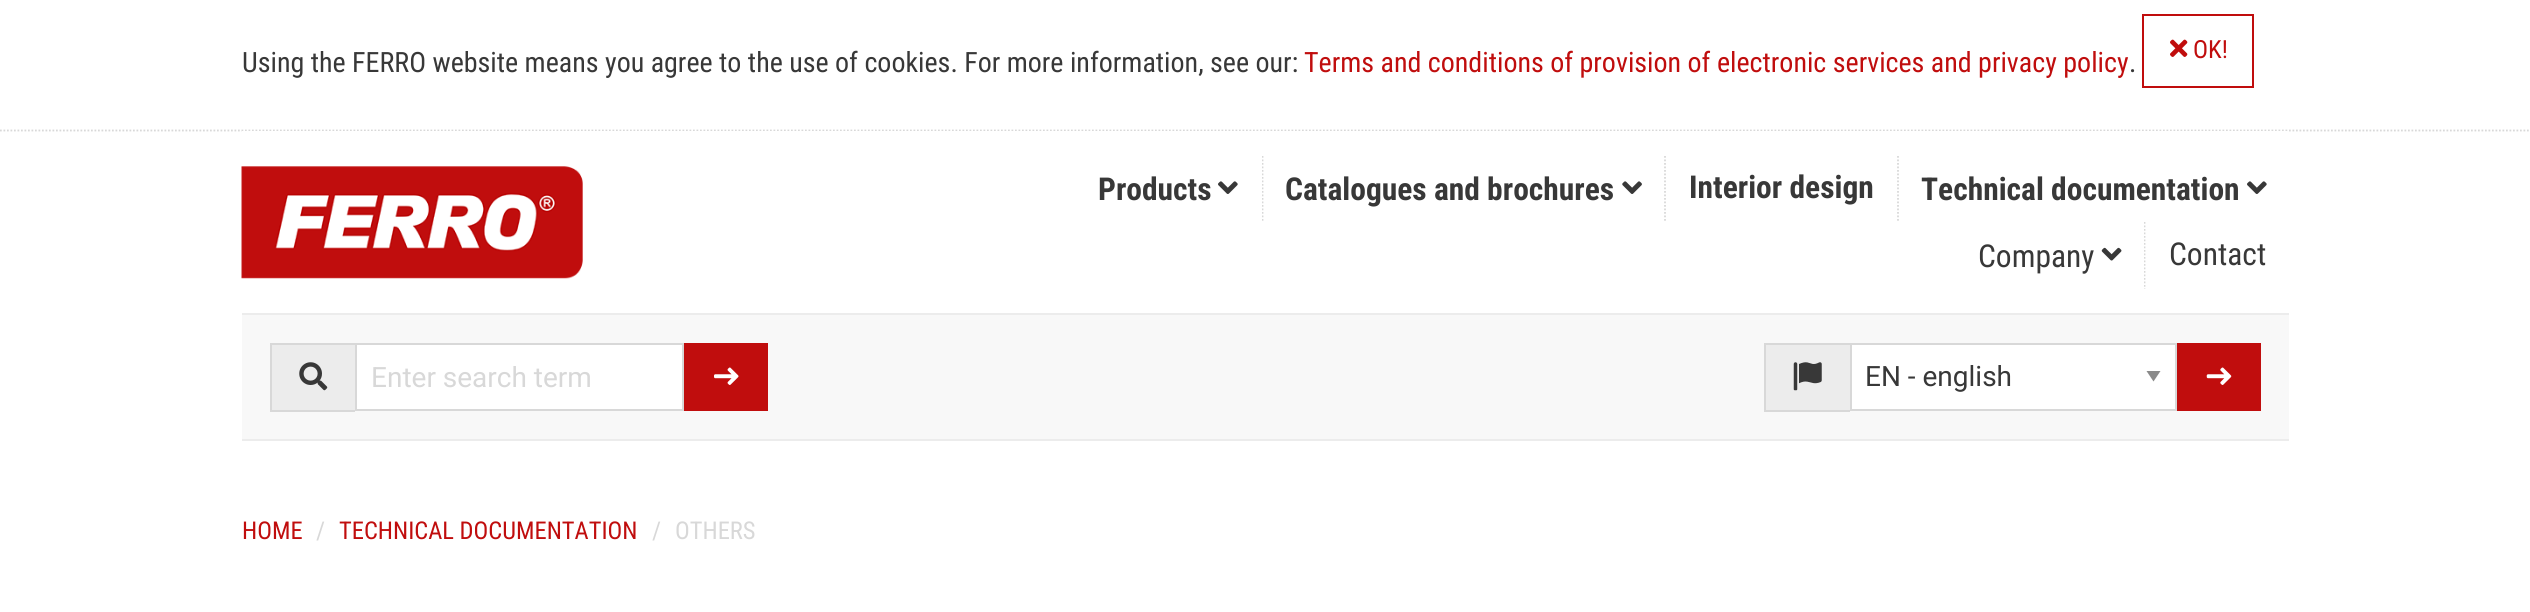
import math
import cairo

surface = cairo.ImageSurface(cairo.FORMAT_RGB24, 2530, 612)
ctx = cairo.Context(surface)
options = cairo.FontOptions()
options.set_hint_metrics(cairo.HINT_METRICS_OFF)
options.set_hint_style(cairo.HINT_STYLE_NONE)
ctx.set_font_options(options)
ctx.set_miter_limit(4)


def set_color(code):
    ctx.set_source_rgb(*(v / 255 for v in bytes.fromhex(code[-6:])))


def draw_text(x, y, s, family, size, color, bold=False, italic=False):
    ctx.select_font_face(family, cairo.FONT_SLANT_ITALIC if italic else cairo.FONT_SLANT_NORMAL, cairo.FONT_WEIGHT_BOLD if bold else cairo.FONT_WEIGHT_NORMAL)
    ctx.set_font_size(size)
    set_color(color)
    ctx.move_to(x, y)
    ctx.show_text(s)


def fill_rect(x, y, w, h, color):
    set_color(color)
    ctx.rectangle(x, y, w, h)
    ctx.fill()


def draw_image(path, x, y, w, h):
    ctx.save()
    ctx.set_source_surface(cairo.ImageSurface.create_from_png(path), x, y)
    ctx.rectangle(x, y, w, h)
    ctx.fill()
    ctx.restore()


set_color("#ffffff")
ctx.paint()
ctx.new_path()
ctx.move_to(0, 130.5)
ctx.line_to(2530.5, 130.5)
set_color("#d8d8d8")
ctx.set_line_width(1.8)
ctx.set_dash([1.75, 1.75])
ctx.stroke()
draw_text(242, 72, "Using the FERRO website means you agree to the use of cookies. For more information, see our:", "Roboto Condensed", 28, "#383838")
draw_text(1304, 72, "Terms and conditions of provision of electronic services and privacy policy", "Roboto Condensed", 28, "#c00d0d")
draw_text(2129, 72, ".", "Roboto Condensed", 28, "#383838")
ctx.rectangle(2143, 15, 110, 72)
set_color("#c00d0d")
ctx.set_line_width(2)
ctx.set_dash([])
ctx.stroke()
draw_image("assets/img1.png", 2170, 39, 18, 18)
draw_text(2193, 58, "OK!", "Roboto Condensed", 25, "#c00d0d")
fill_rect(242, 131, 2046, 1, "#ffffff")
fill_rect(242, 313, 2047, 2, "#ececec")
draw_image("assets/img2.png", 241, 166, 342, 113)
ctx.new_path()
ctx.move_to(1262.5, 156)
ctx.line_to(1262.5, 222)
set_color("#d8d8d8")
ctx.set_line_width(1.8)
ctx.set_dash([1.75, 1.75])
ctx.stroke()
fill_rect(1261, 156, 1, 65, "#ffffff")
draw_text(1098, 200, "Products", "Roboto Condensed", 31.5, "#383838", bold=True)
draw_image("assets/img3.png", 1218, 181, 20, 13)
ctx.new_path()
ctx.move_to(1665, 156)
ctx.line_to(1665, 222)
set_color("#d8d8d8")
ctx.stroke()
draw_text(1285, 200, "Catalogues and brochures", "Roboto Condensed", 31.5, "#383838", bold=True)
draw_image("assets/img4.png", 1622, 181, 20, 13)
ctx.new_path()
ctx.move_to(1898, 156)
ctx.line_to(1898, 222)
set_color("#d8d8d8")
ctx.stroke()
draw_text(1689, 198, "Interior design", "Roboto Condensed", 31.5, "#383838", bold=True)
draw_text(1921, 200, "Technical documentation", "Roboto Condensed", 31.5, "#383838", bold=True)
draw_image("assets/img3.png", 2247, 181, 20, 13)
ctx.new_path()
ctx.move_to(2144.5, 222)
ctx.line_to(2144.5, 289)
set_color("#d8d8d8")
ctx.stroke()
fill_rect(2143, 222, 1, 67, "#ffffff")
draw_text(1978, 267, "Company", "Roboto Condensed", 31.5, "#383838")
draw_image("assets/img5.png", 2101, 247, 21, 14)
draw_text(2169, 265, "Contact", "Roboto Condensed", 31.5, "#383838")
fill_rect(242, 315, 2047, 124, "#f8f8f8")
fill_rect(242, 439, 2047, 2, "#ececec")
fill_rect(272, 345, 83, 65, "#ececec")
fill_rect(270, 343, 85, 2, "#d8d8d8")
fill_rect(270, 410, 85, 2, "#d8d8d8")
fill_rect(270, 343, 2, 68, "#d8d8d8")
draw_image("assets/img6.png", 299, 362, 29, 29)
set_color("#ffffff")
ctx.rectangle(356, 344, 327, 66)
ctx.fill_preserve()
set_color("#d8d8d8")
ctx.set_line_width(2)
ctx.set_dash([])
ctx.stroke()
draw_text(371, 387, "Enter search term", "Roboto", 28, "#d8d8d8")
fill_rect(684, 343, 84, 68, "#c00d0d")
draw_image("assets/img7.png", 714, 367, 25, 18)
fill_rect(1766, 345, 84, 65, "#ececec")
fill_rect(1764, 343, 86, 2, "#d8d8d8")
fill_rect(1764, 410, 86, 2, "#d8d8d8")
fill_rect(1764, 343, 2, 68, "#d8d8d8")
draw_image("assets/img8.png", 1793, 362, 29, 29)
fill_rect(1852, 345, 323, 64, "#ffffff")
set_color("#8a8a8a")
ctx.new_path()
ctx.move_to(2146.5, 371)
ctx.line_to(2160.5, 371)
ctx.line_to(2153.5, 381.5)
ctx.close_path()
ctx.fill()
ctx.rectangle(1851, 344, 325, 66)
set_color("#d8d8d8")
ctx.stroke()
draw_text(1865, 386, "EN - english", "Roboto", 28, "#383838")
fill_rect(2177, 343, 84, 68, "#c00d0d")
draw_image("assets/img9.png", 2206, 367, 26, 18)
draw_text(242, 539, "HOME", "Roboto Condensed", 24.5, "#c00d0d")
draw_text(316, 539, "/", "Roboto Condensed", 24.5, "#d8d8d8")
draw_text(339, 539, "TECHNICAL DOCUMENTATION", "Roboto Condensed", 24.5, "#c00d0d")
draw_text(652, 539, "/", "Roboto Condensed", 24.5, "#d8d8d8")
draw_text(675, 539, "OTHERS", "Roboto Condensed", 24.5, "#d8d8d8")
surface.write_to_png("output.png")
